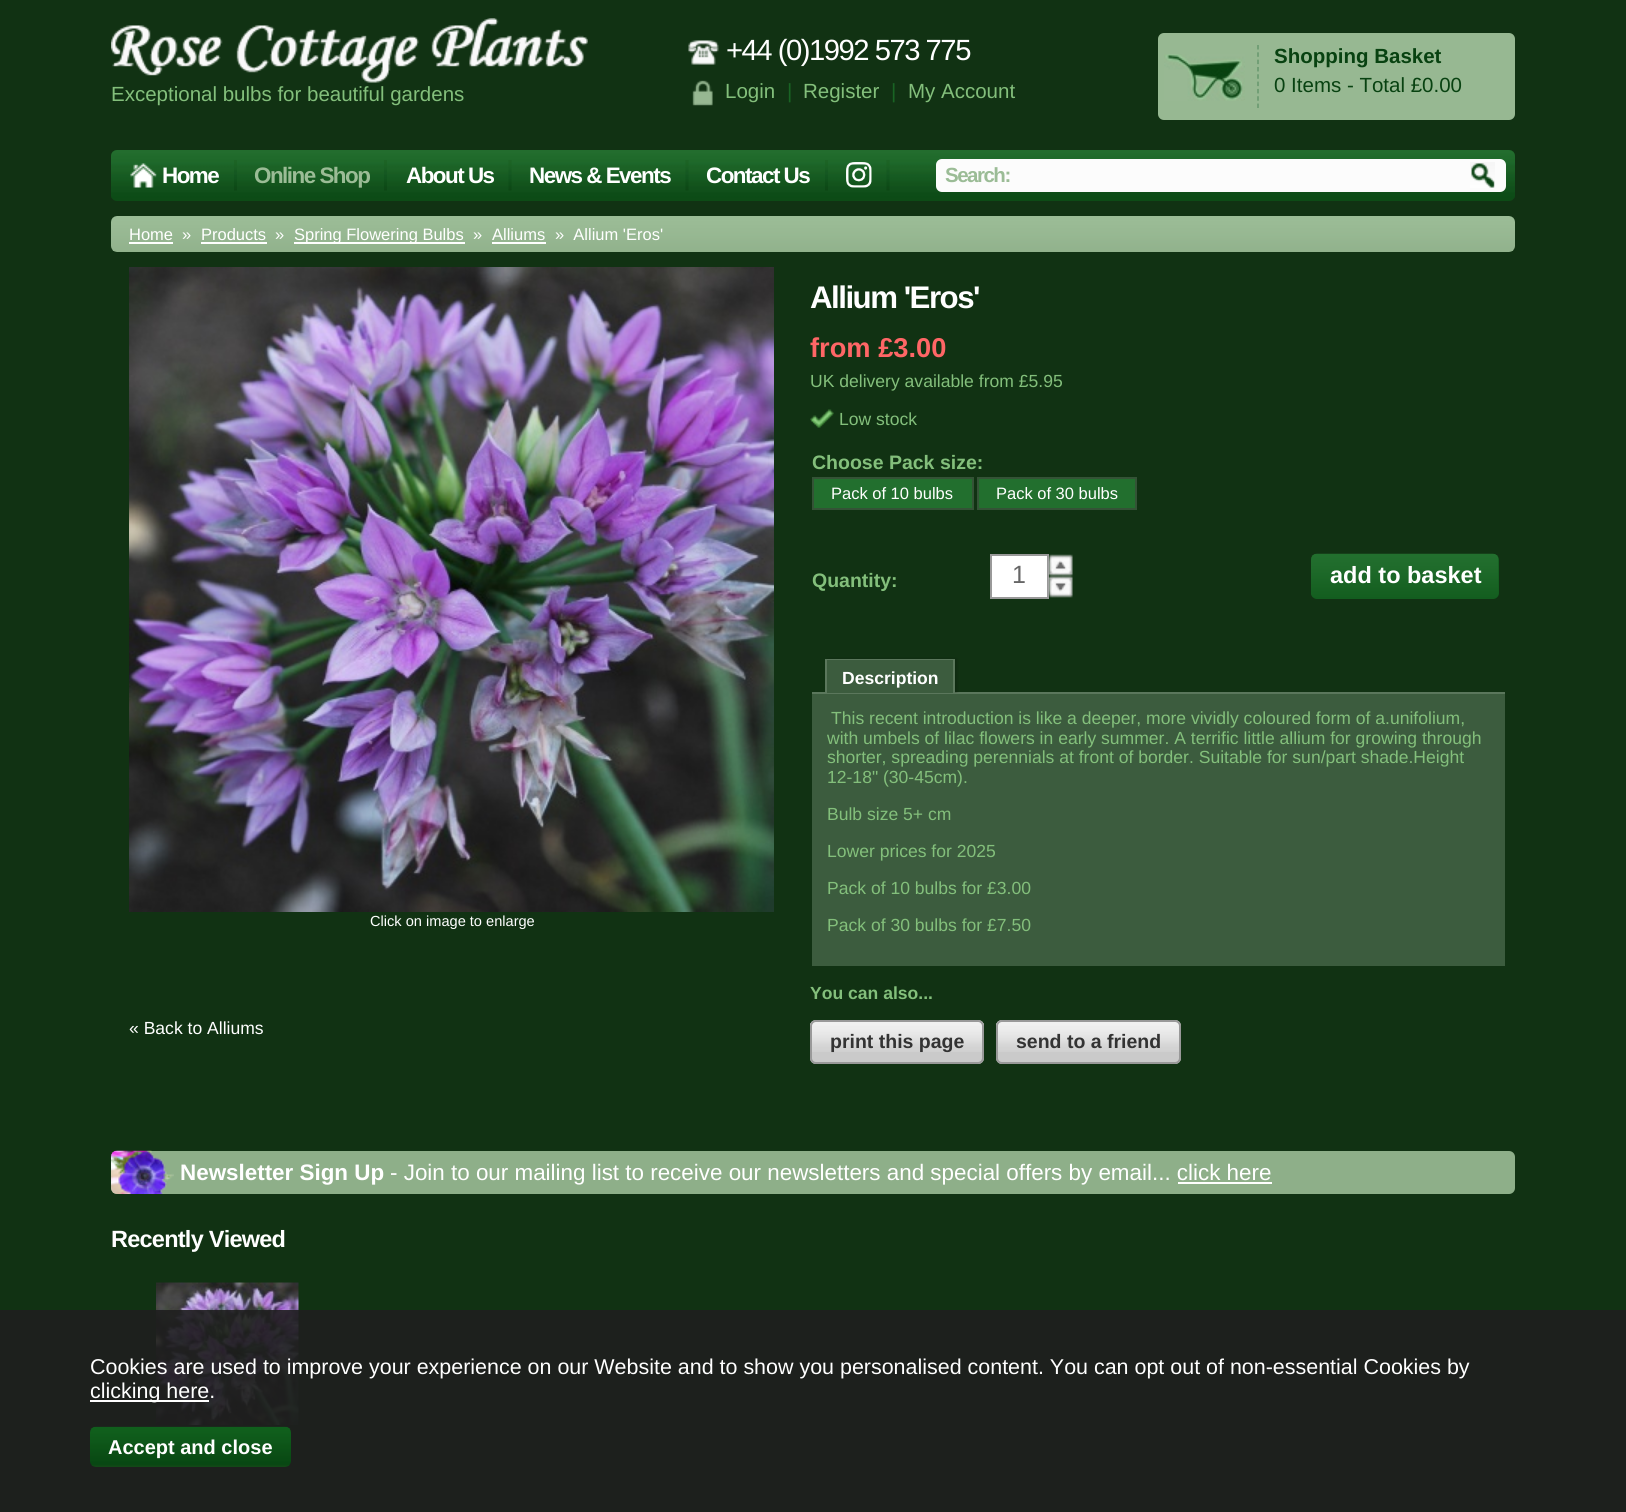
import math
import cairo

surface = cairo.ImageSurface(cairo.FORMAT_RGB24, 1626, 1512)
ctx = cairo.Context(surface)
options = cairo.FontOptions()
options.set_hint_metrics(cairo.HINT_METRICS_OFF)
options.set_hint_style(cairo.HINT_STYLE_NONE)
ctx.set_font_options(options)
ctx.set_miter_limit(4)


def set_color(code):
    ctx.set_source_rgb(*(v / 255 for v in bytes.fromhex(code[-6:])))


def draw_text(x, y, s, family, size, color, bold=False, italic=False):
    ctx.select_font_face(family, cairo.FONT_SLANT_ITALIC if italic else cairo.FONT_SLANT_NORMAL, cairo.FONT_WEIGHT_BOLD if bold else cairo.FONT_WEIGHT_NORMAL)
    ctx.set_font_size(size)
    set_color(color)
    ctx.move_to(x, y)
    ctx.show_text(s)


def draw_spaced(x, y, s, letter, word):
    ctx.move_to(x, y)
    for ch in s:
        ctx.show_text(ch)
        ctx.rel_move_to(letter + word * (ch == ' '), 0)


def fill_rect(x, y, w, h, color):
    set_color(color)
    ctx.rectangle(x, y, w, h)
    ctx.fill()


def rounded_rect(x, y, w, h, r):
    ctx.new_sub_path()
    for i, (u, v) in enumerate([(x + w - r, y + h - r), (x + r, y + h - r), (x + r, y + r), (x + w - r, y + r)]):
        ctx.arc(u, v, r, i * math.pi / 2, (i + 1) * math.pi / 2)
    ctx.close_path()


def draw_shadow(x, y, w, h, r, blur, alpha):
    ctx.push_group_with_content(cairo.CONTENT_ALPHA)
    ctx.set_operator(cairo.OPERATOR_SOURCE)
    for i in range(15, -16, -2):
        e = blur * i / 6
        if min(w, h) + 2 * e > 0:
            ctx.set_source_rgba(0, 0, 0, alpha * math.erfc((i - 1) / 8.5) / 2)
            rounded_rect(x - e, y - e, w + 2 * e, h + 2 * e, max(0, min(r + e + blur * .6, min(w, h) / 2 + e)))
            ctx.fill()
    ctx.mask(ctx.pop_group())


def draw_image(path, x, y, w, h):
    ctx.save()
    ctx.set_source_surface(cairo.ImageSurface.create_from_png(path), x, y)
    ctx.rectangle(x, y, w, h)
    ctx.fill()
    ctx.restore()


set_color("#113213")
ctx.paint()
draw_image("assets/img1.png", 111, 18, 477, 65)
draw_text(111, 101, "Exceptional bulbs for beautiful gardens", "Liberation Sans", 20.5, "#83bf7b")
draw_image("assets/img2.png", 688, 40, 31, 25)
ctx.set_font_size(29.25)
set_color("#ffffff")
draw_spaced(726, 60, "+44 (0)1992 573 775", -1.5, 0)
draw_image("assets/img3.png", 692, 80, 21, 26)
draw_text(725, 98, "Login", "Liberation Sans", 20.5, "#83bf7b")
draw_text(787, 98, "|", "Liberation Sans", 20.5, "#196424")
draw_text(803, 98, "Register", "Liberation Sans", 20.5, "#83bf7b")
draw_text(891, 98, "|", "Liberation Sans", 20.5, "#196424")
draw_text(908, 98, "My Account", "Liberation Sans", 20.5, "#83bf7b")
set_color("#97b892")
rounded_rect(1158, 33, 357, 87, 6)
ctx.fill()
ctx.new_path()
ctx.move_to(1258, 45)
ctx.line_to(1258, 108)
set_color("#66976d")
ctx.set_line_width(1.5)
ctx.set_dash([4.5, 2.82])
ctx.stroke()
draw_image("assets/img4.png", 1164, 54, 81, 47)
draw_text(1274, 63, "Shopping Basket", "Liberation Sans", 20.5, "#084211", bold=True)
draw_text(1274, 92, "0 Items - Total £0.00", "Liberation Sans", 20.5, "#084211")
set_color("#0d4b16")
rounded_rect(111, 150, 1404, 51, 6)
ctx.fill()
draw_image("assets/img5.png", 111, 150, 1404, 48)
draw_image("assets/img6.png", 234, 160, 3, 31)
draw_image("assets/img7.png", 130, 163, 27, 25)
ctx.select_font_face("Liberation Sans", cairo.FONT_SLANT_NORMAL, cairo.FONT_WEIGHT_BOLD)
ctx.set_font_size(22.4)
set_color("#ffffff")
draw_spaced(162, 183, "Home", -1.5, 0)
draw_image("assets/img8.png", 384, 160, 3, 31)
set_color("#9bbc96")
draw_spaced(254, 183, "Online Shop", -1.5, 0)
draw_image("assets/img9.png", 508, 160, 4, 31)
set_color("#ffffff")
draw_spaced(406, 183, "About Us", -1.5, 0)
draw_image("assets/img10.png", 685, 160, 4, 31)
draw_spaced(529, 183, "News & Events", -1.5, 0)
draw_image("assets/img11.png", 825, 160, 3, 31)
draw_spaced(706, 183, "Contact Us", -1.5, 0)
draw_image("assets/img12.png", 886, 160, 4, 31)
draw_image("assets/img13.png", 846, 162, 26, 26)
set_color("#fcfcfc")
rounded_rect(936, 159, 570, 33, 6)
ctx.fill()
ctx.set_font_size(20.5)
set_color("#9bbc96")
draw_spaced(945, 182, "Search:", -1.5, 0)
draw_image("assets/img14.png", 1470, 162, 25, 26)
draw_image("assets/img15.png", 111, 216, 1404, 36)
draw_text(129, 240, "Home", "Liberation Sans", 16.5, "#ffffff")
fill_rect(129, 242, 44, 2, "#ffffff")
draw_text(182, 240, "»", "Liberation Sans", 16.5, "#ffffff")
draw_text(201, 240, "Products", "Liberation Sans", 16.5, "#ffffff")
fill_rect(201, 242, 66, 2, "#ffffff")
draw_text(275, 240, "»", "Liberation Sans", 16.5, "#ffffff")
fill_rect(294, 242, 171, 2, "#ffffff")
draw_text(294, 240, "Spring Flowering Bulbs", "Liberation Sans", 16.5, "#ffffff")
draw_text(473, 240, "»", "Liberation Sans", 16.5, "#ffffff")
draw_text(492, 240, "Alliums", "Liberation Sans", 16.5, "#ffffff")
fill_rect(492, 242, 54, 2, "#ffffff")
draw_text(555, 240, "»  Allium 'Eros'", "Liberation Sans", 16.5, "#ffffff")
draw_image("assets/img16.png", 129, 267, 645, 645)
draw_text(370, 926, "Click on image to enlarge", "Liberation Sans", 14.6, "#ffffff")
draw_text(129, 1034, "« Back to Alliums", "Liberation Sans", 17.55, "#ffffff")
ctx.select_font_face("Liberation Sans", cairo.FONT_SLANT_NORMAL, cairo.FONT_WEIGHT_BOLD)
ctx.set_font_size(31.25)
draw_spaced(810, 308, "Allium 'Eros'", -1.5, 0)
draw_text(810, 357, "from £3.00", "Liberation Sans", 27.25, "#ff6666", bold=True)
draw_text(810, 387, "UK delivery available from £5.95", "Liberation Sans", 17.55, "#83bf7b")
draw_image("assets/img17.png", 810, 409, 24, 19)
draw_text(839, 425, "Low stock", "Liberation Sans", 17.55, "#83bf7b")
draw_text(812, 469, "Choose Pack size:", "Liberation Sans", 19.5, "#83bf7b", bold=True)
set_color("#226f2e")
ctx.rectangle(813, 478, 160, 31)
ctx.fill_preserve()
set_color("#345336")
ctx.set_line_width(2)
ctx.set_dash([])
ctx.stroke()
draw_text(831, 499, "Pack of 10 bulbs", "Liberation Sans", 16.5, "#ffffff")
set_color("#226f2e")
ctx.rectangle(978, 478, 158, 31)
ctx.fill_preserve()
set_color("#345336")
ctx.stroke()
draw_text(996, 499, "Pack of 30 bulbs", "Liberation Sans", 16.5, "#ffffff")
draw_text(812, 587, "Quantity:", "Liberation Sans", 19.5, "#83bf7b", bold=True)
set_color("#ffffff")
ctx.rectangle(991, 555, 57, 43)
ctx.fill_preserve()
set_color("#999999")
ctx.stroke()
draw_text(1012, 583, "1", "Liberation Sans", 25, "#666666")
draw_image("assets/img18.png", 1048, 554, 25, 22)
draw_image("assets/img19.png", 1048, 576, 25, 22)
set_color("#135d1f")
rounded_rect(1311, 554, 188, 45, 6)
ctx.fill()
draw_image("assets/img20.png", 1311, 553, 188, 44)
draw_text(1330, 583, "add to basket", "Liberation Sans", 23.5, "#ffffff", bold=True)
fill_rect(812, 694, 693, 272, "#3c5c3e")
fill_rect(812, 692, 693, 2, "#5b775c")
ctx.save()
ctx.rectangle(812, 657, 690, 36)
ctx.clip()
set_color("#000000")
draw_shadow(828, 659, 129, 36, 0, 1.5, 0.2)
ctx.restore()
fill_rect(825, 659, 129, 1, "#5b775c")
fill_rect(953, 659, 2, 34, "#5b775c")
fill_rect(825, 659, 2, 34, "#5b775c")
fill_rect(827, 660, 126, 33, "#3c5c3e")
draw_text(842, 684, "Description", "Liberation Sans", 17.55, "#ffffff", bold=True)
draw_text(831, 724, "This recent introduction is like a deeper, more vividly coloured form of a.unifolium,", "Liberation Sans", 17.55, "#83bf7b")
draw_text(827, 744, "with umbels of lilac flowers in early summer. A terrific little allium for growing through", "Liberation Sans", 17.55, "#83bf7b")
draw_text(827, 763, "shorter, spreading perennials at front of border. Suitable for sun/part shade.Height", "Liberation Sans", 17.55, "#83bf7b")
draw_text(827, 783, "12-18\" (30-45cm).", "Liberation Sans", 17.55, "#83bf7b")
draw_text(827, 820, "Bulb size 5+ cm", "Liberation Sans", 17.55, "#83bf7b")
draw_text(827, 857, "Lower prices for 2025", "Liberation Sans", 17.55, "#83bf7b")
draw_text(827, 894, "Pack of 10 bulbs for £3.00", "Liberation Sans", 17.55, "#83bf7b")
draw_text(827, 931, "Pack of 30 bulbs for £7.50", "Liberation Sans", 17.55, "#83bf7b")
draw_text(810, 999, "You can also...", "Liberation Sans", 17.55, "#83bf7b", bold=True)
set_color("#cacaca")
rounded_rect(810, 1020, 174, 44, 6)
ctx.fill()
draw_image("assets/img21.png", 810, 1021, 174, 31)
rounded_rect(811, 1021, 172, 42, 5)
set_color("#999999")
ctx.stroke()
draw_text(830, 1048, "print this page", "Liberation Sans", 19.5, "#333333", bold=True)
set_color("#cacaca")
rounded_rect(996, 1020, 185, 44, 6)
ctx.fill()
draw_image("assets/img22.png", 996, 1021, 185, 31)
rounded_rect(997, 1021, 183, 42, 5)
set_color("#999999")
ctx.stroke()
draw_text(1016, 1048, "send to a friend", "Liberation Sans", 19.5, "#333333", bold=True)
set_color("#8eaf89")
rounded_rect(111, 1151, 1404, 43, 6)
ctx.fill()
draw_image("assets/img23.png", 111, 1150, 63, 44)
draw_text(180, 1180, "Newsletter Sign Up", "Liberation Sans", 22.4, "#ffffff", bold=True)
draw_text(390, 1180, "- Join to our mailing list to receive our newsletters and special offers by email... click here", "Liberation Sans", 22.4, "#ffffff")
fill_rect(1178, 1182, 94, 2, "#ffffff")
ctx.select_font_face("Liberation Sans", cairo.FONT_SLANT_NORMAL, cairo.FONT_WEIGHT_BOLD)
ctx.set_font_size(23.5)
draw_spaced(111, 1247, "Recently Viewed", -0.75, 0)
draw_image("assets/img24.png", 156, 1282, 143, 143)
ctx.set_source_rgba(0.118, 0.118, 0.118, 0.9)
ctx.rectangle(0, 1310, 1626, 202)
ctx.fill()
draw_text(90, 1374, "Cookies are used to improve your experience on our Website and to show you personalised content. You can opt out of non-essential Cookies by", "Liberation Sans", 21.45, "#ffffff")
fill_rect(90, 1400, 119, 2, "#ffffff")
draw_text(90, 1398, "clicking here.", "Liberation Sans", 21.45, "#ffffff")
draw_image("assets/img25.png", 90, 1426, 201, 41)
draw_text(108, 1454, "Accept and close", "Liberation Sans", 20, "#ffffff", bold=True)
surface.write_to_png("output.png")
